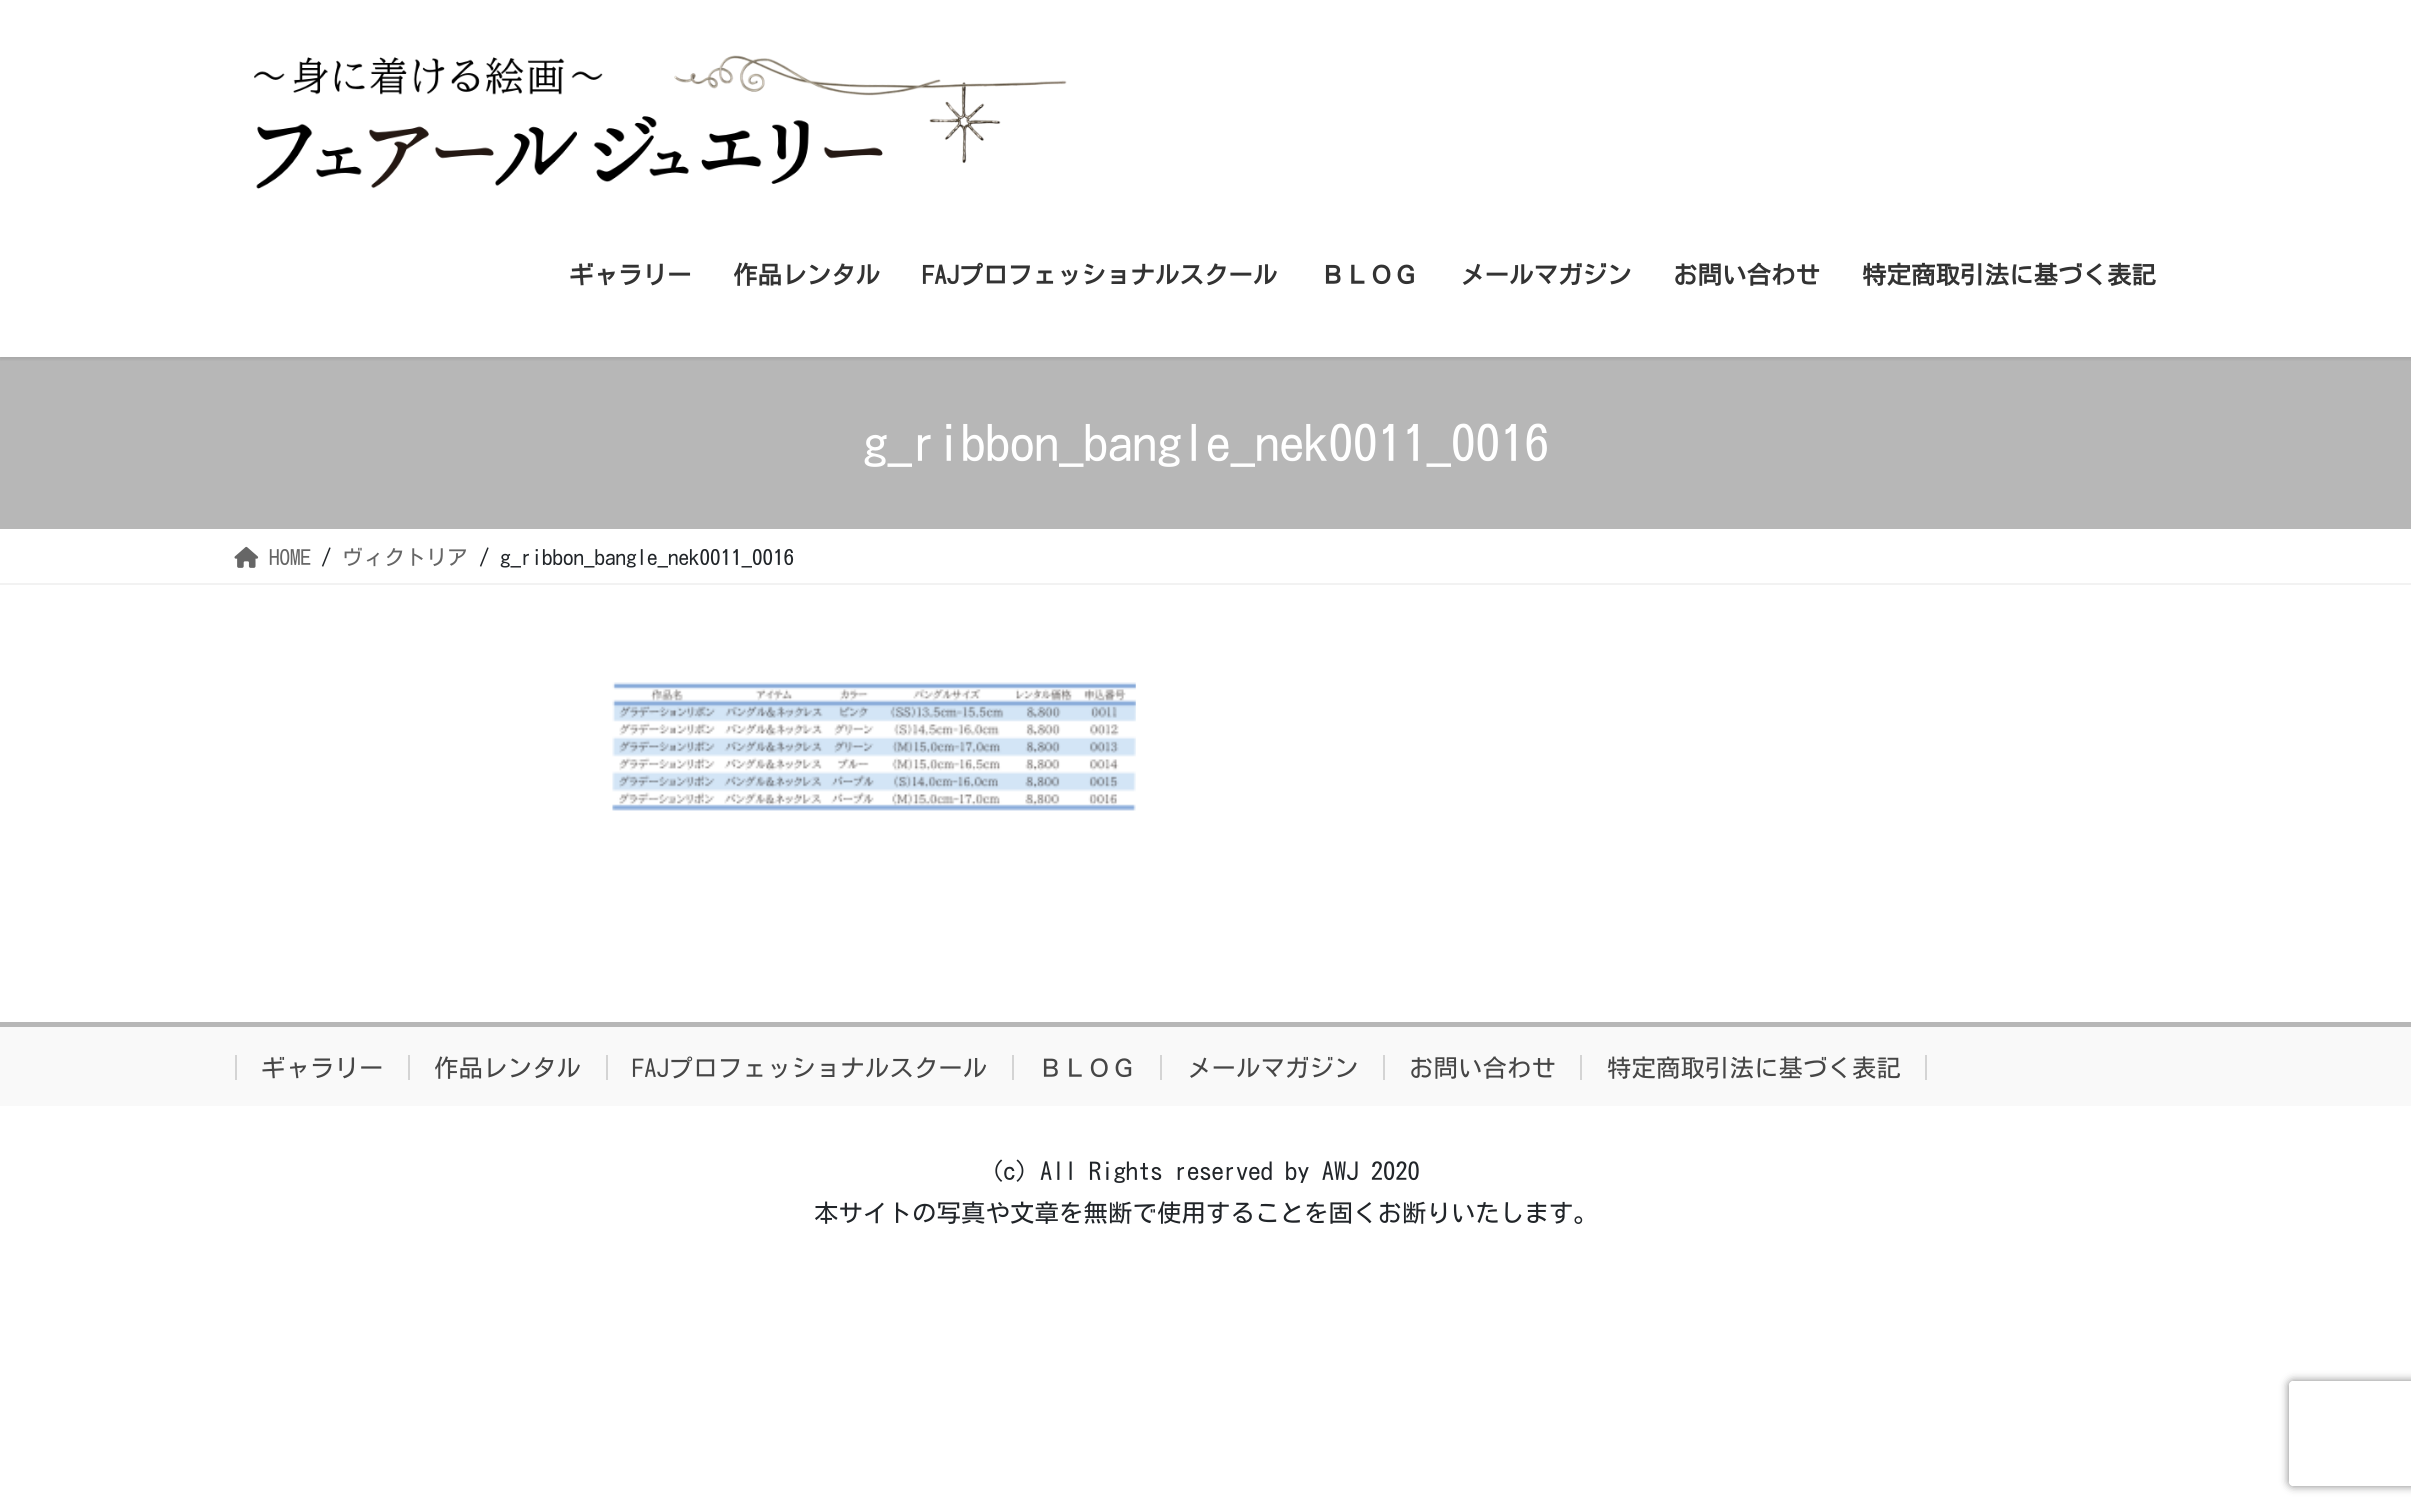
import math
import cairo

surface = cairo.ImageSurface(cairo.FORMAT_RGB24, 2411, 1509)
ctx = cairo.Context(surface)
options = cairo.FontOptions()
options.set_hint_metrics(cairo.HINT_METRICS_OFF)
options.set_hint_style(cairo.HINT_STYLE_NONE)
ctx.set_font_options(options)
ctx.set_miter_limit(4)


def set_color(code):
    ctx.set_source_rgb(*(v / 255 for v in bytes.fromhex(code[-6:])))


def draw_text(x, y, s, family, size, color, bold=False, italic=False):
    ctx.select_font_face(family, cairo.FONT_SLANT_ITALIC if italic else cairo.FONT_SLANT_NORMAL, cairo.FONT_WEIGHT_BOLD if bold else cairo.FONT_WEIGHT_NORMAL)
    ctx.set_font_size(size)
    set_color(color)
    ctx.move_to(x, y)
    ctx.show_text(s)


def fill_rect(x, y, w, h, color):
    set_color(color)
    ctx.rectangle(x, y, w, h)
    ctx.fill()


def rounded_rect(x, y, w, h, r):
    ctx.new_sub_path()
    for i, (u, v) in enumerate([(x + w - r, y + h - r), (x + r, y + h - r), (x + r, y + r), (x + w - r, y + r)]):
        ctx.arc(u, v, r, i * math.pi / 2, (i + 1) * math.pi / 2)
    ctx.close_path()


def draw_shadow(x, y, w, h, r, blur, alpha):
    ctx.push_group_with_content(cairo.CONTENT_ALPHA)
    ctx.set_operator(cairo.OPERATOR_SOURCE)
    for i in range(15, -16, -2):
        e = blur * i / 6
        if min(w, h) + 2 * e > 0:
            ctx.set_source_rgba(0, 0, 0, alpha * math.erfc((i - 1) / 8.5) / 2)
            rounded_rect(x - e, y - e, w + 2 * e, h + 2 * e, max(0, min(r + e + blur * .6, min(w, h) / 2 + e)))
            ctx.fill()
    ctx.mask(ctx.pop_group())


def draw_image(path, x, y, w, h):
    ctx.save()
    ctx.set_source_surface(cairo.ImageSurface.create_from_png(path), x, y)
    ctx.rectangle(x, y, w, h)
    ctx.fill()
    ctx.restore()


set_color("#ffffff")
ctx.paint()
fill_rect(0, 357, 2411, 172, "#b7b7b7")
ctx.save()
ctx.rectangle(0, 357, 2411, 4)
ctx.clip()
set_color("#000000")
draw_shadow(0, 2, 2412, 357, 0, 2.5, 0.1)
ctx.restore()
draw_image("assets/img1.png", 254, 55, 813, 134)
draw_text(569, 284, "ギャラリー", "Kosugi", 24.5, "#333333", bold=True)
draw_text(733, 284, "作品レンタル", "Kosugi", 24.5, "#333333", bold=True)
draw_text(922, 284, "FAJプロフェッショナルスクール", "Kosugi", 24.5, "#333333", bold=True)
draw_text(1320, 284, "ＢＬＯＧ", "Kosugi", 24.5, "#333333", bold=True)
draw_text(1460, 284, "メールマガジン", "Kosugi", 24.5, "#333333", bold=True)
draw_text(1673, 284, "お問い合わせ", "Kosugi", 24.5, "#333333", bold=True)
draw_text(1862, 284, "特定商取引法に基づく表記", "Kosugi", 24.5, "#333333", bold=True)
draw_text(863, 461, "g_ribbon_bangle_nek0011_0016", "Kosugi", 49, "#ffffff")
fill_rect(0, 583, 2411, 2, "#f2f2f2")
draw_image("assets/img2.png", 234, 546, 25, 22)
draw_text(269, 565, "HOME", "Kosugi", 21, "#666666")
draw_text(321, 565, "/", "Kosugi", 21, "#212529")
draw_text(342, 565, "ヴィクトリア", "Kosugi", 21, "#666666")
draw_text(479, 565, "/ g_ribbon_bangle_nek0011_0016", "Kosugi", 21, "#212529")
draw_image("assets/img3.png", 612, 682, 524, 129)
fill_rect(0, 1027, 2411, 79, "#f9f9f9")
fill_rect(0, 1022, 2411, 5, "#b7b7b7")
draw_text(261, 1077, "ギャラリー", "Kosugi", 24.5, "#464646")
fill_rect(235, 1055, 2, 25, "#d4d4d4")
draw_text(434, 1077, "作品レンタル", "Kosugi", 24.5, "#464646")
fill_rect(408, 1055, 2, 25, "#d4d4d4")
draw_text(632, 1077, "FAJプロフェッショナルスクール", "Kosugi", 24.5, "#464646")
fill_rect(606, 1055, 2, 25, "#d4d4d4")
draw_text(1038, 1077, "ＢＬＯＧ", "Kosugi", 24.5, "#464646")
fill_rect(1012, 1055, 2, 25, "#d4d4d4")
draw_text(1187, 1077, "メールマガジン", "Kosugi", 24.5, "#464646")
fill_rect(1160, 1055, 2, 25, "#d4d4d4")
draw_text(1409, 1077, "お問い合わせ", "Kosugi", 24.5, "#464646")
fill_rect(1383, 1055, 2, 25, "#d4d4d4")
draw_text(1607, 1077, "特定商取引法に基づく表記", "Kosugi", 24.5, "#464646")
fill_rect(1925, 1055, 2, 25, "#d4d4d4")
fill_rect(1580, 1055, 2, 25, "#d4d4d4")
draw_text(991, 1180, "(c) All Rights reserved by AWJ 2020", "Kosugi", 24.5, "#212529")
draw_text(814, 1222, "本サイトの写真や文章を無断で使用することを固くお断りいたします。", "Kosugi", 24.5, "#212529")
ctx.save()
ctx.set_fill_rule(cairo.FILL_RULE_EVEN_ODD)
ctx.new_path()
ctx.move_to(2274, 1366)
ctx.line_to(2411, 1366)
ctx.line_to(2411, 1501)
ctx.line_to(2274, 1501)
ctx.close_path()
ctx.move_to(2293, 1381)
ctx.line_to(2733, 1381)
ctx.curve_to(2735, 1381, 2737, 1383, 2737, 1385)
ctx.line_to(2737, 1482)
ctx.curve_to(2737, 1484, 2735, 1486, 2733, 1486)
ctx.line_to(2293, 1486)
ctx.curve_to(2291, 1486, 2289, 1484, 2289, 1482)
ctx.line_to(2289, 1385)
ctx.curve_to(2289, 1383, 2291, 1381, 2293, 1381)
ctx.close_path()
ctx.clip()
set_color("#808080")
draw_shadow(2289, 1381, 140, 105, 4, 4.5, 1)
ctx.restore()
surface.write_to_png("output.png")
